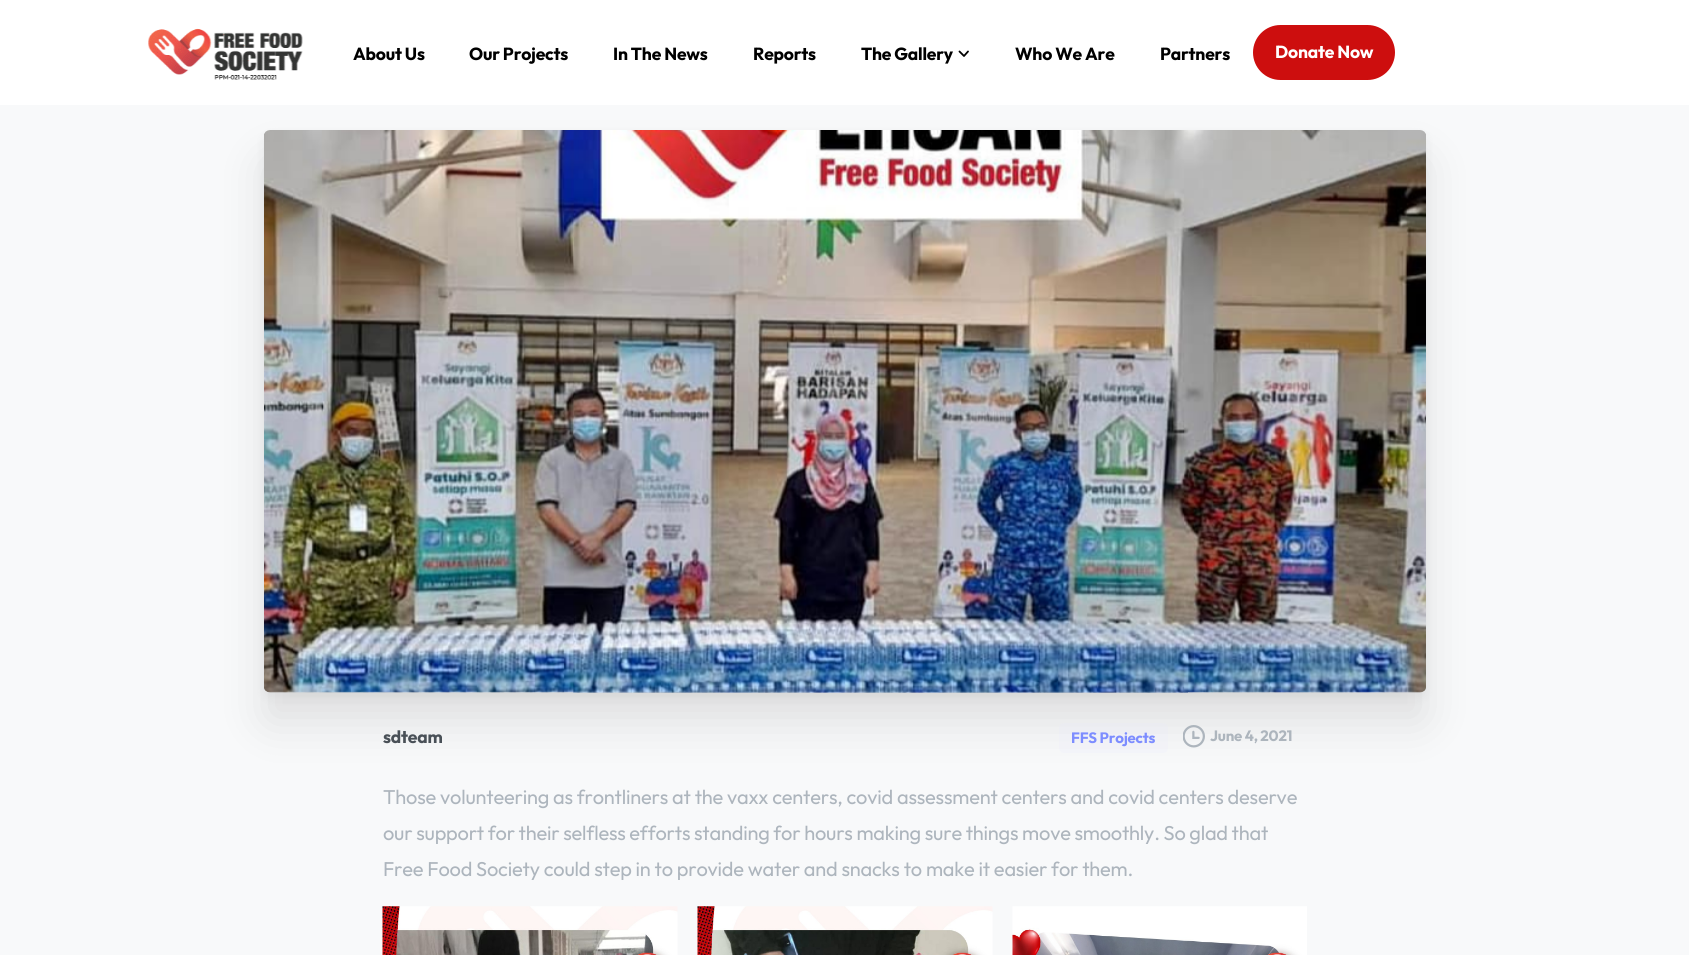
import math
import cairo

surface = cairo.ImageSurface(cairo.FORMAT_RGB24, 1689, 955)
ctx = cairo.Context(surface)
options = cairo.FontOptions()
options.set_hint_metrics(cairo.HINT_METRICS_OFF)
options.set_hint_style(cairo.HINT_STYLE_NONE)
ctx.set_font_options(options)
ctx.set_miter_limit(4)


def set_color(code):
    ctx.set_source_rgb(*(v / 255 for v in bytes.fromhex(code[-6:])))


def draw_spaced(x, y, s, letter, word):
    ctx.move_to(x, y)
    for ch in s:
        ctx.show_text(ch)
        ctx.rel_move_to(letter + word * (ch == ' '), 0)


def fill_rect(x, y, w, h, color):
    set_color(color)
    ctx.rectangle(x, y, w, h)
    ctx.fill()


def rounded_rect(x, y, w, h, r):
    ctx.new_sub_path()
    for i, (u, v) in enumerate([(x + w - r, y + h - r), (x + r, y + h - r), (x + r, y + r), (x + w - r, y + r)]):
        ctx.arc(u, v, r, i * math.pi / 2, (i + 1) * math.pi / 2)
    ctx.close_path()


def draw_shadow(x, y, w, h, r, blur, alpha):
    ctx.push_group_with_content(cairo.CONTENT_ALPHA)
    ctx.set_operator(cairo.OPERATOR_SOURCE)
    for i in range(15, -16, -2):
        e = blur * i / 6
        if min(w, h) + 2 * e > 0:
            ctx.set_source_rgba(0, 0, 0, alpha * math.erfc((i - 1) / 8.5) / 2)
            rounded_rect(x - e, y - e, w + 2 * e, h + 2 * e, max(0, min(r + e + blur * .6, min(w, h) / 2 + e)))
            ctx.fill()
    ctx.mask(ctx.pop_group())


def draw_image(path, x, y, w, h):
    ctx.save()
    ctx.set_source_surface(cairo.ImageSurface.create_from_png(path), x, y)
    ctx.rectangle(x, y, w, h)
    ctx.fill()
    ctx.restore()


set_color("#ffffff")
ctx.paint()
draw_image("assets/img1.png", 148, 28, 155, 52)
ctx.select_font_face("Outfit", cairo.FONT_SLANT_NORMAL, cairo.FONT_WEIGHT_BOLD)
ctx.set_font_size(17.5)
set_color("#000000")
draw_spaced(353, 60, "About Us", -0.2, 0)
draw_spaced(469, 60, "Our Projects", -0.2, 0)
draw_spaced(613, 60, "In The News", -0.2, 0)
draw_spaced(753, 60, "Reports", -0.2, 0)
draw_spaced(861, 60, "The Gallery", -0.2, 0)
ctx.new_path()
ctx.move_to(959.5, 51.5)
ctx.line_to(964, 56)
ctx.line_to(968, 51.5)
ctx.set_line_width(1.8)
ctx.set_line_cap(cairo.LINE_CAP_ROUND)
ctx.set_line_join(cairo.LINE_JOIN_ROUND)
ctx.stroke()
draw_spaced(1015, 60, "Who We Are", -0.2, 0)
draw_spaced(1160, 60, "Partners", -0.2, 0)
set_color("#cd0e0e")
rounded_rect(1253, 25, 142, 55, 27.5)
ctx.fill()
set_color("#ffffff")
draw_spaced(1275, 58, "Donate Now", -0.2, 0)
fill_rect(0, 105, 1689, 850, "#f8f9fa")
set_color("#000000")
draw_shadow(264, 160, 1162, 563, 6, 22, 0.1)
draw_shadow(264, 135, 1162, 563, 6, 5, 0.05)
draw_image("assets/img2.png", 264, 130, 1162, 563)
set_color("#495057")
draw_spaced(383, 743, "sdteam", -0.2, 0)
ctx.set_source_rgba(0.89, 0.902, 1, 0.15)
rounded_rect(1059, 723, 109, 30, 5)
ctx.fill()
ctx.set_font_size(15)
set_color("#7d8dff")
draw_spaced(1071, 743, "FFS Projects", -0.2, 0)
draw_image("assets/img3.png", 1183, 725, 22, 23)
set_color("#adb5bd")
draw_spaced(1210, 741, "June 4, 2021", -0.2, 0)
ctx.select_font_face("Outfit")
ctx.set_font_size(20)
draw_spaced(383, 804, "Those volunteering as frontliners at the vaxx centers, covid assessment centers and covid centers deserve", -0.2, 0)
draw_spaced(383, 840, "our support for their selfless efforts standing for hours making sure things move smoothly. So glad that", -0.2, -0.2)
draw_spaced(383, 876, "Free Food Society could step in to provide water and snacks to make it easier for them.", -0.2, 0)
draw_image("assets/img4.png", 382, 906, 296, 49)
draw_image("assets/img5.png", 697, 906, 296, 49)
draw_image("assets/img6.png", 1012, 906, 295, 49)
surface.write_to_png("output.png")
